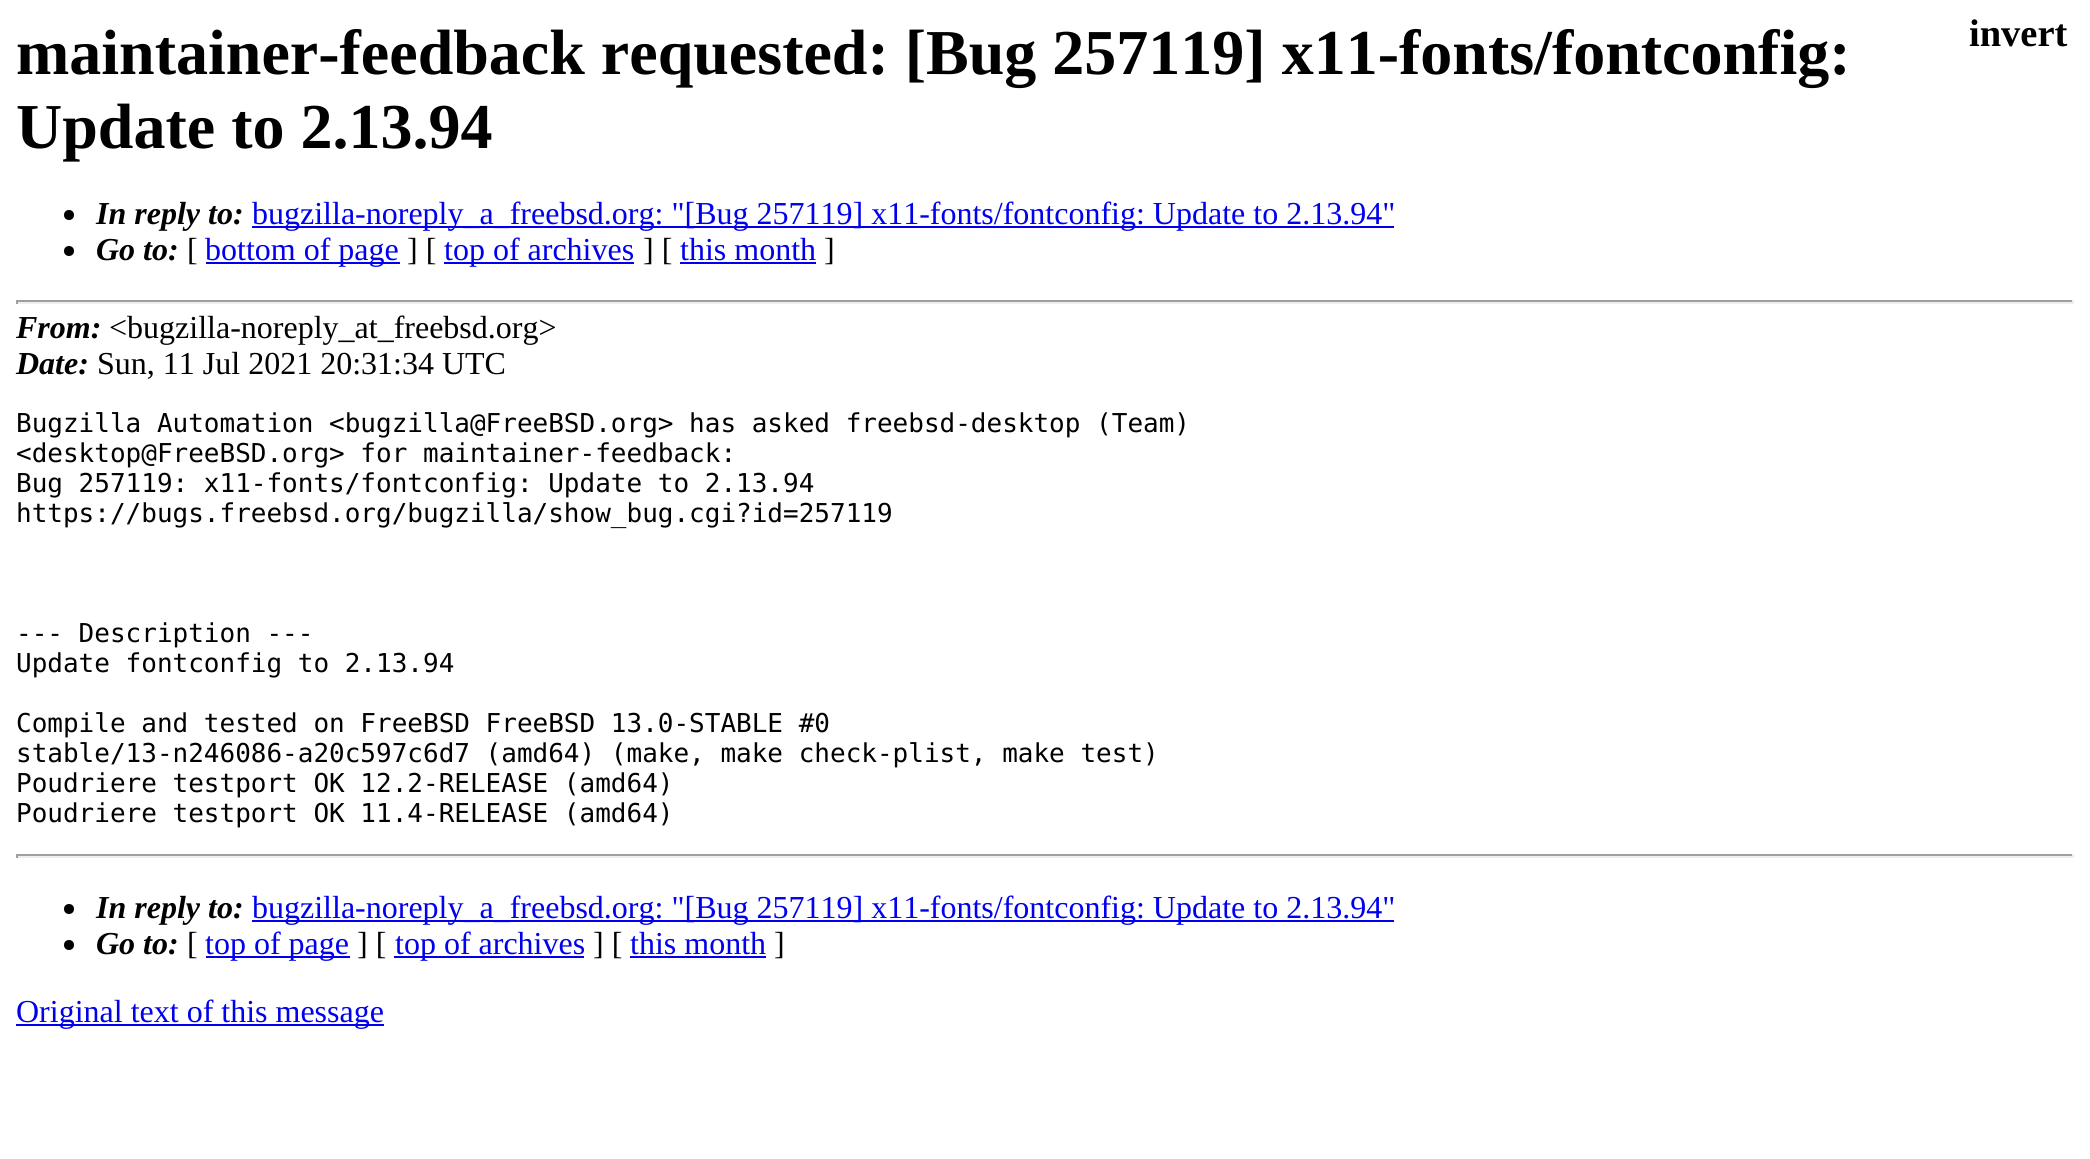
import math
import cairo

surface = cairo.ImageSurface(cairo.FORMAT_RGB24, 2090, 1159)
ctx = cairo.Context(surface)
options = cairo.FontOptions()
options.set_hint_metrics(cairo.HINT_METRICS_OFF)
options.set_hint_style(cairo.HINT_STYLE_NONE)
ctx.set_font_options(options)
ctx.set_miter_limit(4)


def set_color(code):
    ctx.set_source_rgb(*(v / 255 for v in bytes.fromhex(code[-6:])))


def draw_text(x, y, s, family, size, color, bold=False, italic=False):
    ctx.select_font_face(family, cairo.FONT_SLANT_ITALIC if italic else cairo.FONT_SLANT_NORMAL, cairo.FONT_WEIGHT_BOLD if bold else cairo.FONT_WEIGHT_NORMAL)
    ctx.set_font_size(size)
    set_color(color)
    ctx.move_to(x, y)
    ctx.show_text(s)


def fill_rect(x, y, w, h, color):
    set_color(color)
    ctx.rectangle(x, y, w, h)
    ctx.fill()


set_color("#ffffff")
ctx.paint()
draw_text(16, 74, "maintainer-feedback requested: [Bug 257119] x11-fonts/fontconfig:", "Liberation Serif", 64, "#000000", bold=True)
draw_text(16, 148, "Update to 2.13.94", "Liberation Serif", 64, "#000000", bold=True)
ctx.new_path()
ctx.arc(69, 215, 5, 0, 2 * math.pi)
ctx.fill()
draw_text(96, 224, "In reply to:", "Liberation Serif", 32, "#000000", bold=True, italic=True)
fill_rect(252, 226, 1142, 2, "#0000ee")
draw_text(252, 224, "bugzilla-noreply_a_freebsd.org: \"[Bug 257119] x11-fonts/fontconfig: Update to 2.13.94\"", "Liberation Serif", 32, "#0000ee")
set_color("#000000")
ctx.new_path()
ctx.arc(69, 251, 5, 0, 2 * math.pi)
ctx.fill()
draw_text(96, 260, "Go to:", "Liberation Serif", 32, "#000000", bold=True, italic=True)
draw_text(187, 260, "[", "Liberation Serif", 32, "#000000")
fill_rect(206, 262, 194, 2, "#0000ee")
draw_text(205, 260, "bottom of page", "Liberation Serif", 32, "#0000ee")
draw_text(407, 260, "] [", "Liberation Serif", 32, "#000000")
fill_rect(444, 262, 190, 2, "#0000ee")
draw_text(444, 260, "top of archives", "Liberation Serif", 32, "#0000ee")
draw_text(643, 260, "] [", "Liberation Serif", 32, "#000000")
draw_text(680, 260, "this month", "Liberation Serif", 32, "#0000ee")
fill_rect(680, 262, 136, 2, "#0000ee")
draw_text(824, 260, "]", "Liberation Serif", 32, "#000000")
fill_rect(16, 300, 2058, 2, "#9f9f9f")
fill_rect(2072, 300, 2, 4, "#eeeeee")
fill_rect(16, 302, 2058, 2, "#eeeeee")
fill_rect(16, 300, 2, 4, "#9f9f9f")
draw_text(1969, 46, "invert", "Liberation Serif", 38.5, "#000000", bold=True)
draw_text(16, 338, "From:", "Liberation Serif", 32, "#000000", bold=True, italic=True)
draw_text(109, 338, "<bugzilla-noreply_at_freebsd.org>", "Liberation Serif", 32, "#000000")
draw_text(16, 374, "Date:", "Liberation Serif", 32, "#000000", bold=True, italic=True)
draw_text(97, 374, "Sun, 11 Jul 2021 20:31:34 UTC", "Liberation Serif", 32, "#000000")
draw_text(16, 432, "Bugzilla Automation <bugzilla@FreeBSD.org> has asked freebsd-desktop (Team)", "DejaVu Sans Mono", 26, "#000000")
draw_text(16, 462, "<desktop@FreeBSD.org> for maintainer-feedback:", "DejaVu Sans Mono", 26, "#000000")
draw_text(16, 492, "Bug 257119: x11-fonts/fontconfig: Update to 2.13.94", "DejaVu Sans Mono", 26, "#000000")
draw_text(16, 522, "https://bugs.freebsd.org/bugzilla/show_bug.cgi?id=257119", "DejaVu Sans Mono", 26, "#000000")
draw_text(16, 642, "--- Description ---", "DejaVu Sans Mono", 26, "#000000")
draw_text(16, 672, "Update fontconfig to 2.13.94", "DejaVu Sans Mono", 26, "#000000")
draw_text(16, 732, "Compile and tested on FreeBSD FreeBSD 13.0-STABLE #0", "DejaVu Sans Mono", 26, "#000000")
draw_text(16, 762, "stable/13-n246086-a20c597c6d7 (amd64) (make, make check-plist, make test)", "DejaVu Sans Mono", 26, "#000000")
draw_text(16, 792, "Poudriere testport OK 12.2-RELEASE (amd64)", "DejaVu Sans Mono", 26, "#000000")
draw_text(16, 822, "Poudriere testport OK 11.4-RELEASE (amd64)", "DejaVu Sans Mono", 26, "#000000")
fill_rect(16, 854, 2058, 2, "#9f9f9f")
fill_rect(2072, 854, 2, 4, "#eeeeee")
fill_rect(16, 856, 2058, 2, "#eeeeee")
fill_rect(16, 854, 2, 4, "#9f9f9f")
set_color("#000000")
ctx.new_path()
ctx.arc(69, 909, 5, 0, 2 * math.pi)
ctx.fill()
draw_text(96, 918, "In reply to:", "Liberation Serif", 32, "#000000", bold=True, italic=True)
fill_rect(252, 920, 1142, 2, "#0000ee")
draw_text(252, 918, "bugzilla-noreply_a_freebsd.org: \"[Bug 257119] x11-fonts/fontconfig: Update to 2.13.94\"", "Liberation Serif", 32, "#0000ee")
set_color("#000000")
ctx.new_path()
ctx.arc(69, 945, 5, 0, 2 * math.pi)
ctx.fill()
draw_text(96, 954, "Go to:", "Liberation Serif", 32, "#000000", bold=True, italic=True)
draw_text(187, 954, "[", "Liberation Serif", 32, "#000000")
fill_rect(206, 956, 144, 2, "#0000ee")
draw_text(205, 954, "top of page", "Liberation Serif", 32, "#0000ee")
draw_text(357, 954, "] [", "Liberation Serif", 32, "#000000")
fill_rect(394, 956, 190, 2, "#0000ee")
draw_text(395, 954, "top of archives", "Liberation Serif", 32, "#0000ee")
draw_text(593, 954, "] [", "Liberation Serif", 32, "#000000")
draw_text(630, 954, "this month", "Liberation Serif", 32, "#0000ee")
fill_rect(630, 956, 136, 2, "#0000ee")
draw_text(774, 954, "]", "Liberation Serif", 32, "#000000")
fill_rect(16, 1024, 368, 2, "#0000ee")
draw_text(16, 1022, "Original text of this message", "Liberation Serif", 32, "#0000ee")
surface.write_to_png("output.png")
